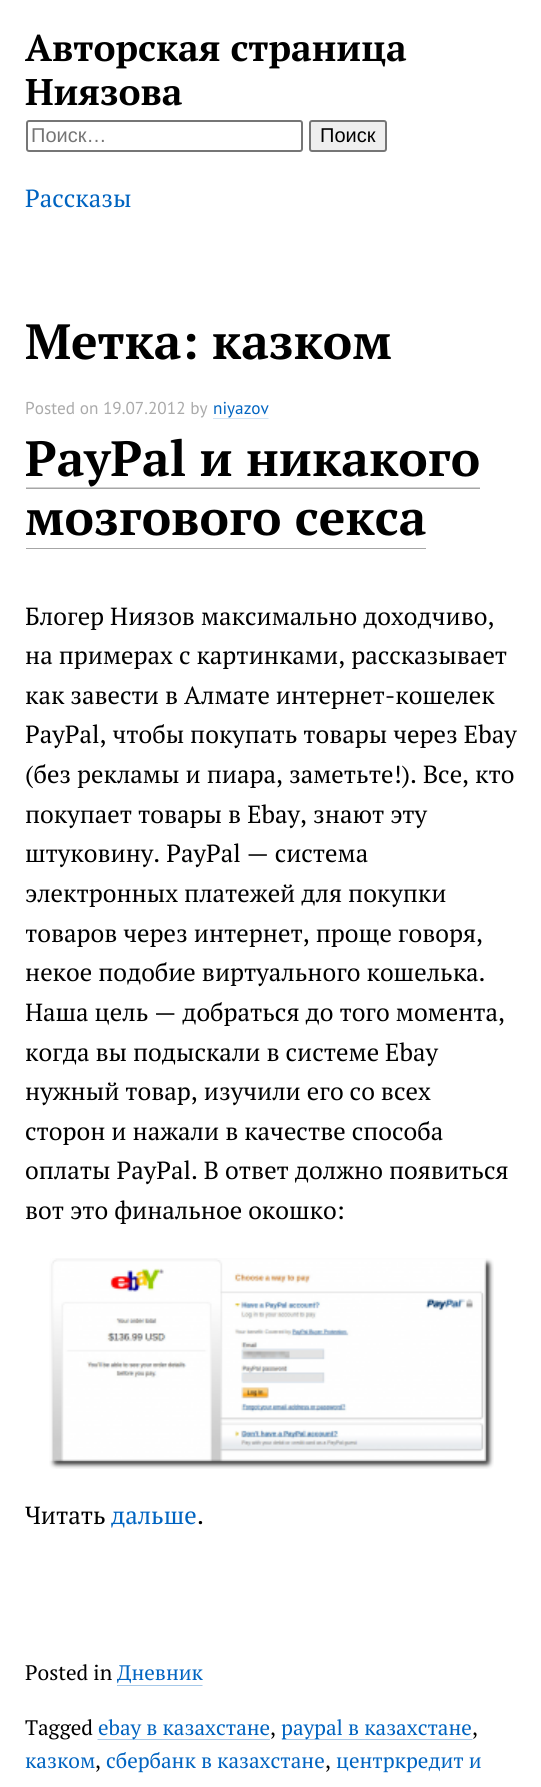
import math
import cairo

surface = cairo.ImageSurface(cairo.FORMAT_RGB24, 541, 1787)
ctx = cairo.Context(surface)
options = cairo.FontOptions()
options.set_hint_metrics(cairo.HINT_METRICS_OFF)
options.set_hint_style(cairo.HINT_STYLE_NONE)
ctx.set_font_options(options)
ctx.set_miter_limit(4)


def set_color(code):
    ctx.set_source_rgb(*(v / 255 for v in bytes.fromhex(code[-6:])))


def draw_text(x, y, s, family, size, color, bold=False, italic=False):
    ctx.select_font_face(family, cairo.FONT_SLANT_ITALIC if italic else cairo.FONT_SLANT_NORMAL, cairo.FONT_WEIGHT_BOLD if bold else cairo.FONT_WEIGHT_NORMAL)
    ctx.set_font_size(size)
    set_color(color)
    ctx.move_to(x, y)
    ctx.show_text(s)


def rounded_rect(x, y, w, h, r):
    ctx.new_sub_path()
    for i, (u, v) in enumerate([(x + w - r, y + h - r), (x + r, y + h - r), (x + r, y + r), (x + w - r, y + r)]):
        ctx.arc(u, v, r, i * math.pi / 2, (i + 1) * math.pi / 2)
    ctx.close_path()


def draw_image(path, x, y, w, h):
    ctx.save()
    ctx.set_source_surface(cairo.ImageSurface.create_from_png(path), x, y)
    ctx.rectangle(x, y, w, h)
    ctx.fill()
    ctx.restore()


set_color("#ffffff")
ctx.paint()
draw_text(25, 61, "Авторская страница", "PT Serif", 37.1, "#000000", bold=True)
draw_text(25, 105, "Ниязова", "PT Serif", 37.1, "#000000", bold=True)
rounded_rect(27, 121, 275, 30, 2)
set_color("#767676")
ctx.stroke()
draw_text(31, 142, "Поиск…", "Liberation Sans", 20, "#757575")
set_color("#efefef")
rounded_rect(310, 121, 76, 30, 2)
ctx.fill_preserve()
set_color("#767676")
ctx.stroke()
draw_text(320, 142, "Поиск", "Liberation Sans", 20, "#000000")
draw_text(25, 207, "Рассказы", "PT Serif", 24.75, "#0064c1")
draw_text(25, 359, "Метка: казком", "PT Serif", 49.5, "#000000", bold=True)
draw_text(25, 414, "Posted on 19.07.2012 by", "PT Sans", 17.25, "#aaaaaa")
draw_text(213, 414, "niyazov", "PT Sans", 17.25, "#0064c1")
draw_image("assets/img1.png", 213, 418, 56, 1)
draw_text(25, 476, "PayPal и никакого", "PT Serif", 49.5, "#000000", bold=True)
draw_image("assets/img2.png", 26, 487, 454, 62)
draw_text(25, 535, "мозгового секса", "PT Serif", 49.5, "#000000", bold=True)
ctx.save()
ctx.rectangle(26, 572, 492, 1053)
ctx.clip()
draw_text(25, 625, "Блогер Ниязов максимально доходчиво,", "PT Serif", 24.75, "#000000")
draw_text(25, 664, "на примерах с картинками, рассказывает", "PT Serif", 24.75, "#000000")
draw_text(25, 704, "как завести в Алмате интернет-кошелек", "PT Serif", 24.75, "#000000")
draw_text(25, 743, "PayPal, чтобы покупать товары через Ebay", "PT Serif", 24.75, "#000000")
ctx.restore()
draw_text(25, 783, "(без рекламы и пиара, заметьте!). Все, кто", "PT Serif", 24.75, "#000000")
ctx.save()
ctx.rectangle(26, 572, 492, 1053)
ctx.clip()
draw_text(25, 823, "покупает товары в Еbay, знают эту", "PT Serif", 24.75, "#000000")
draw_text(25, 862, "штуковину. PayPal — система", "PT Serif", 24.75, "#000000")
ctx.restore()
draw_text(25, 902, "электронных платежей для покупки", "PT Serif", 24.75, "#000000")
ctx.save()
ctx.rectangle(26, 572, 492, 1053)
ctx.clip()
draw_text(25, 942, "товаров через интернет, проще говоря,", "PT Serif", 24.75, "#000000")
draw_text(25, 981, "некое подобие виртуального кошелька.", "PT Serif", 24.75, "#000000")
draw_text(25, 1021, "Наша цель — добраться до того момента,", "PT Serif", 24.75, "#000000")
draw_text(25, 1061, "когда вы подыскали в системе Ebay", "PT Serif", 24.75, "#000000")
draw_text(25, 1100, "нужный товар, изучили его со всех", "PT Serif", 24.75, "#000000")
draw_text(25, 1140, "сторон и нажали в качестве способа", "PT Serif", 24.75, "#000000")
draw_text(25, 1179, "оплаты PayPal. В ответ должно появиться", "PT Serif", 24.75, "#000000")
draw_text(25, 1219, "вот это финальное окошко:", "PT Serif", 24.75, "#000000")
ctx.restore()
draw_image("assets/img3.png", 49, 1258, 445, 211)
draw_text(25, 1524, "Читать", "PT Serif", 24.75, "#000000")
draw_text(111, 1524, "дальше", "PT Serif", 24.75, "#0064c1")
draw_text(197, 1524, ".", "PT Serif", 24.75, "#000000")
draw_text(25, 1680, "Posted in", "PT Serif", 21, "#000000")
draw_text(117, 1680, "Дневник", "PT Serif", 21, "#0064c1")
draw_image("assets/img4.png", 117, 1685, 86, 1)
draw_text(25, 1735, "Tagged", "PT Serif", 21, "#000000")
draw_image("assets/img5.png", 97, 1739, 173, 1)
draw_text(98, 1735, "ebay в казахстане", "PT Serif", 21, "#0064c1")
draw_text(270, 1735, ",", "PT Serif", 21, "#000000")
draw_image("assets/img6.png", 282, 1739, 191, 1)
draw_text(281, 1735, "paypal в казахстане", "PT Serif", 21, "#0064c1")
draw_text(472, 1735, ",", "PT Serif", 21, "#000000")
draw_text(25, 1768, "казком", "PT Serif", 21, "#0064c1")
draw_text(95, 1768, ",", "PT Serif", 21, "#000000")
draw_text(106, 1768, "сбербанк в казахстане", "PT Serif", 21, "#0064c1")
draw_text(325, 1768, ",", "PT Serif", 21, "#000000")
draw_text(336, 1768, "центркредит и", "PT Serif", 21, "#0064c1")
surface.write_to_png("output.png")
